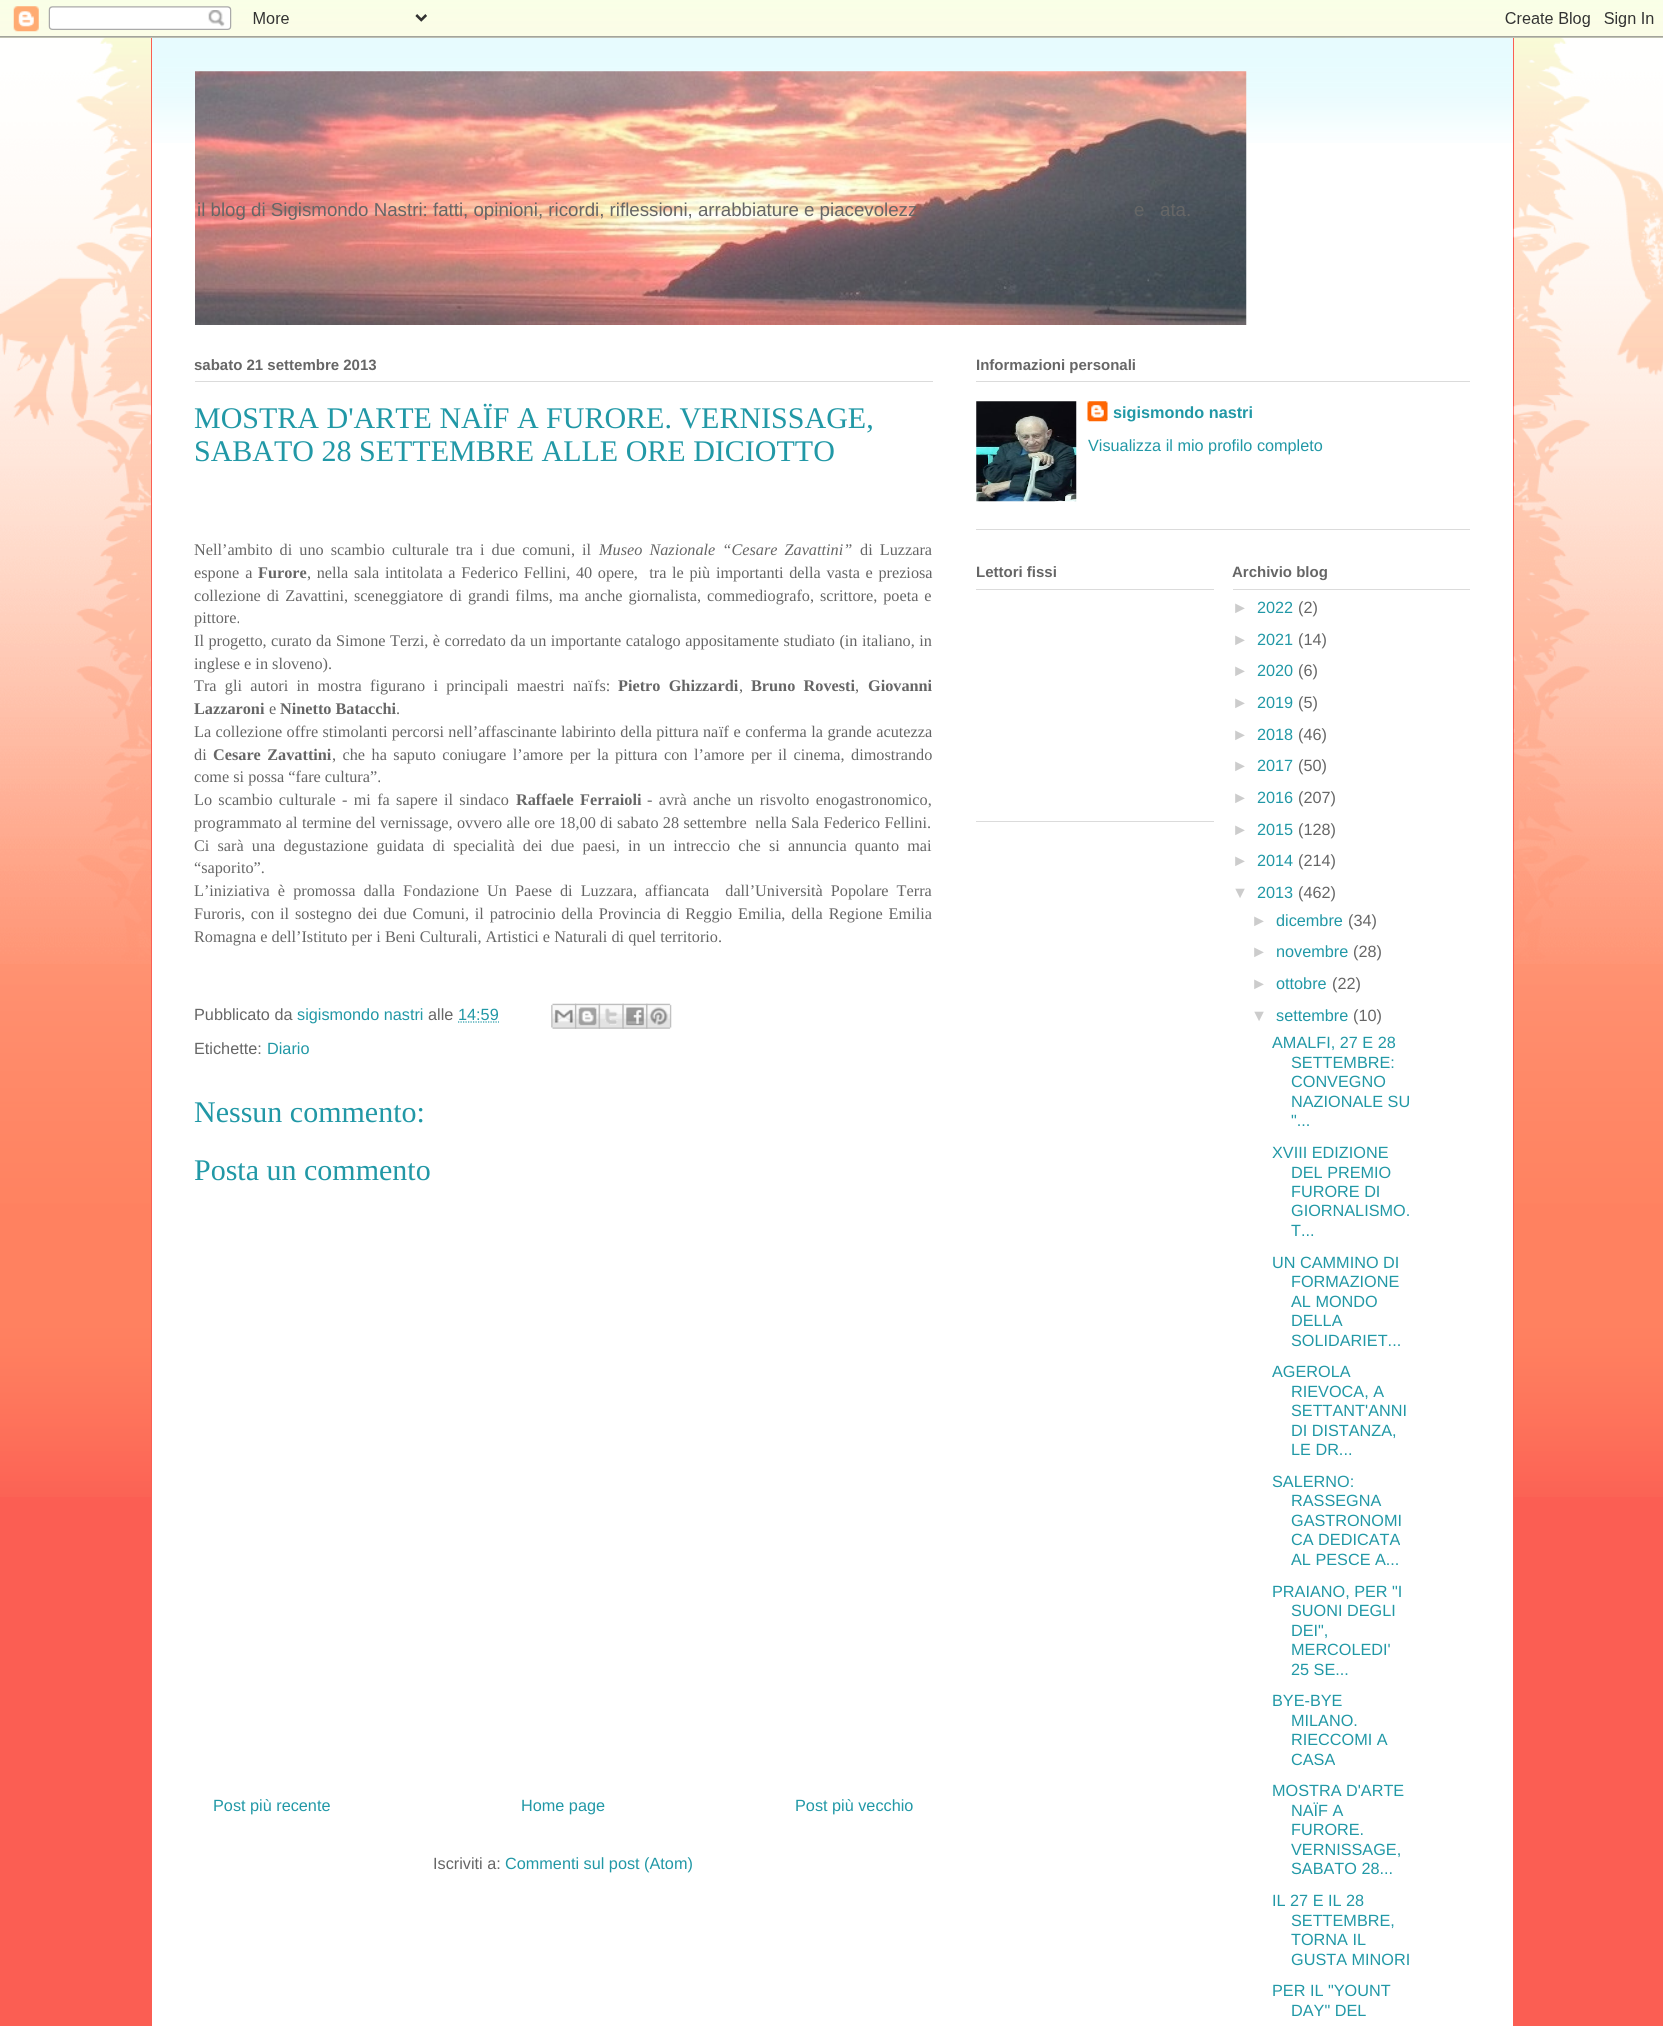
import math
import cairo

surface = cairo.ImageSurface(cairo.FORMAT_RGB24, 1663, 2026)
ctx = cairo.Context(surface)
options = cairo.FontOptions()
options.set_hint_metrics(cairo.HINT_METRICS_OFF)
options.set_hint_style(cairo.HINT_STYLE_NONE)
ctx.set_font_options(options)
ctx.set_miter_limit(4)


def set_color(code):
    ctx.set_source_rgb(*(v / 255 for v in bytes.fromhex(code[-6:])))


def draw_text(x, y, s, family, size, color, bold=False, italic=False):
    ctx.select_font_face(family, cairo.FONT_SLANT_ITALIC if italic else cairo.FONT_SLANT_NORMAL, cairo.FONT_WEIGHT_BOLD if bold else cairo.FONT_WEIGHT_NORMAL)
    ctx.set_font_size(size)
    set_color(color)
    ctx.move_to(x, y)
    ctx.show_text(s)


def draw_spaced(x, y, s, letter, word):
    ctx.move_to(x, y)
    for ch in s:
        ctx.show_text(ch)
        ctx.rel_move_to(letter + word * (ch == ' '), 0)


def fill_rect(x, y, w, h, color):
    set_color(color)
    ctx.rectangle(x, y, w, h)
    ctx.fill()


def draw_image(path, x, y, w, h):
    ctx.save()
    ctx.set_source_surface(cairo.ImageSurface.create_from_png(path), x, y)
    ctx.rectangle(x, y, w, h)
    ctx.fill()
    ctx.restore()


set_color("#fb5e53")
ctx.paint()
draw_image("assets/img1.png", 0, 0, 1663, 1497)
draw_image("assets/img3.png", 0, 37, 1514, 927)
fill_rect(152, 38, 1361, 1988, "#ffffff")
draw_image("assets/img4.png", 151, 37, 1363, 106)
fill_rect(1513, 38, 1, 1459, "#fb5e53")
draw_image("assets/img5.png", 1513, 37, 150, 927)
draw_image("assets/img2.png", 0, 0, 1663, 38)
fill_rect(151, 38, 1, 1459, "#fb5e53")
draw_image("assets/img6.png", 195, 71, 1052, 254)
draw_text(197, 216, "il blog di Sigismondo Nastri: fatti, opinioni, ricordi, riflessioni, arrabbiature e piacevolezz", "Liberation Sans", 18.7, "#666666")
draw_text(1134, 216, "e", "Liberation Sans", 18.7, "#666666")
draw_text(1160, 216, "ata.", "Liberation Sans", 18.7, "#666666")
fill_rect(195, 381, 738, 1, "#dbdbdb")
draw_text(194, 370, "sabato 21 settembre 2013", "Liberation Sans", 15, "#666666", bold=True)
draw_text(194, 428, "MOSTRA D'ARTE NAÏF A FURORE. VERNISSAGE,", "Liberation Serif", 30, "#2198a6")
draw_text(194, 461, "SABATO 28 SETTEMBRE ALLE ORE DICIOTTO", "Liberation Serif", 30, "#2198a6")
ctx.set_font_size(16.25)
set_color("#666666")
draw_spaced(194, 555, "Nell’ambito di uno scambio culturale tra i due comuni, il", 0, 3)
ctx.select_font_face("Liberation Serif", cairo.FONT_SLANT_ITALIC)
draw_spaced(599, 555, "Museo Nazionale “Cesare Zavattini”", 0, 3)
ctx.select_font_face("Liberation Serif")
draw_spaced(860, 555, "di Luzzara", 0, 3)
draw_spaced(194, 578, "espone a", 0, 2)
draw_text(258, 578, "Furore", "Liberation Serif", 16.25, "#666666", bold=True)
ctx.select_font_face("Liberation Serif")
draw_spaced(307, 578, ", nella sala intitolata a Federico Fellini, 40 opere,  tra le più importanti della vasta e preziosa", 0, 1.6)
draw_spaced(194, 601, "collezione di Zavattini,", 0, 1.9)
draw_spaced(354, 601, "sceneggiatore di grandi films, ma anche giornalista, commediografo, scrittore, poeta e", 0, 1.9)
draw_text(194, 623, "pittore.", "Liberation Serif", 16.25, "#666666")
draw_spaced(194, 646, "Il progetto, curato da Simone Terzi, è corredato da un importante catalogo appositamente studiato (in italiano, in", 0, 0.4)
draw_text(194, 669, "inglese e in sloveno).", "Liberation Serif", 16.25, "#666666")
draw_spaced(194, 691, "Tra gli autori in mostra figurano i principali maestri naï", 0, 4.25)
draw_text(594, 691, "fs:", "Liberation Serif", 16.25, "#666666")
ctx.select_font_face("Liberation Serif", cairo.FONT_SLANT_NORMAL, cairo.FONT_WEIGHT_BOLD)
draw_spaced(618, 691, "Pietro Ghizzardi", 0, 4.25)
draw_text(739, 691, ",", "Liberation Serif", 16.25, "#666666")
ctx.select_font_face("Liberation Serif", cairo.FONT_SLANT_NORMAL, cairo.FONT_WEIGHT_BOLD)
draw_spaced(751, 691, "Bruno Rovesti", 0, 4.25)
draw_text(855, 691, ",", "Liberation Serif", 16.25, "#666666")
draw_text(868, 691, "Giovanni", "Liberation Serif", 16.25, "#666666", bold=True)
draw_text(194, 714, "Lazzaroni", "Liberation Serif", 16.25, "#666666", bold=True)
draw_text(269, 714, "e", "Liberation Serif", 16.25, "#666666")
draw_text(280, 714, "Ninetto Batacchi", "Liberation Serif", 16.25, "#666666", bold=True)
draw_text(396, 714, ".", "Liberation Serif", 16.25, "#666666")
draw_spaced(194, 737, "La collezione offre stimolanti percorsi nell’affascinante labirinto della pittura na", 0, 0.25)
draw_spaced(719, 737, "ïf e conferma la grande acutezza", 0, 0.5)
draw_text(194, 760, "di", "Liberation Serif", 16.25, "#666666")
ctx.select_font_face("Liberation Serif", cairo.FONT_SLANT_NORMAL, cairo.FONT_WEIGHT_BOLD)
draw_spaced(213, 760, "Cesare Zavattini", 0, 2.4)
ctx.select_font_face("Liberation Serif")
draw_spaced(332, 760, ", che ha saputo coniugare l’amore per la pittura con l’amore per il cinema, dimostrando", 0, 2.4)
draw_text(194, 782, "come si possa “fare cultura”.", "Liberation Serif", 16.25, "#666666")
draw_spaced(194, 805, "Lo scambio culturale - mi fa sapere il sindaco", 0, 2.25)
ctx.select_font_face("Liberation Serif", cairo.FONT_SLANT_NORMAL, cairo.FONT_WEIGHT_BOLD)
draw_spaced(516, 805, "Raffaele Ferraioli", 0, 2.25)
ctx.select_font_face("Liberation Serif")
draw_spaced(647, 805, "- avrà anche un risvolto enogastronomico,", 0, 2.25)
draw_spaced(194, 828, "programmato al termine del vernissage, ovvero alle ore 18,00 di sabato 28 settembre  nella Sala Federico Fellini.", 0, 0.25)
draw_spaced(194, 851, "Ci sarà una degustazione guidata di specialità dei due paesi, in un intreccio che si annuncia quanto mai", 0, 4.1)
draw_text(194, 873, "“saporito”.", "Liberation Serif", 16.25, "#666666")
draw_spaced(194, 896, "L’iniziativa è promossa dalla Fondazione Un Paese di Luzzara, affiancata  dall’Università Popolare Terra", 0, 4)
draw_spaced(194, 919, "Furoris, con il sostegno dei due Comuni, il patrocinio della Provincia di Reggio Emilia, della Regione Emilia", 0, 1.75)
draw_text(194, 942, "Romagna e dell’Istituto per i Beni Culturali, Artistici e Naturali di quel territorio.", "Liberation Serif", 16.25, "#666666")
draw_text(194, 1020, "Pubblicato da", "Liberation Sans", 16.25, "#666666")
draw_text(297, 1020, "sigismondo nastri", "Liberation Sans", 16.25, "#2198a6")
draw_text(428, 1020, "alle", "Liberation Sans", 16.25, "#666666")
draw_text(458, 1020, "14:59", "Liberation Sans", 16.25, "#2198a6")
ctx.new_path()
ctx.move_to(458, 1022)
ctx.line_to(499, 1022)
ctx.set_line_width(1.2)
ctx.set_dash([1.25, 1.25])
ctx.stroke()
draw_image("assets/img7.png", 551, 1003, 26, 26)
draw_image("assets/img8.png", 575, 1003, 25, 26)
draw_image("assets/img9.png", 598, 1003, 26, 26)
draw_image("assets/img10.png", 622, 1003, 26, 26)
draw_image("assets/img11.png", 646, 1003, 26, 26)
draw_text(194, 1054, "Etichette:", "Liberation Sans", 16.25, "#666666")
draw_text(267, 1054, "Diario", "Liberation Sans", 16.25, "#2198a6")
draw_text(194, 1122, "Nessun commento:", "Liberation Serif", 30, "#2198a6")
draw_text(194, 1180, "Posta un commento", "Liberation Serif", 30, "#2198a6")
draw_text(213, 1811, "Post più recente", "Liberation Sans", 16.25, "#2198a6")
draw_text(521, 1811, "Home page", "Liberation Sans", 16.25, "#2198a6")
draw_text(795, 1811, "Post più vecchio", "Liberation Sans", 16.25, "#2198a6")
draw_text(433, 1869, "Iscriviti a:", "Liberation Sans", 16.25, "#666666")
draw_text(505, 1869, "Commenti sul post (Atom)", "Liberation Sans", 16.25, "#2198a6")
fill_rect(976, 529, 494, 1, "#dbdbdb")
fill_rect(976, 381, 494, 1, "#dbdbdb")
draw_text(976, 370, "Informazioni personali", "Liberation Sans", 15, "#666666", bold=True)
draw_image("assets/img12.png", 976, 401, 101, 101)
draw_image("assets/img13.png", 1087, 401, 21, 21)
draw_text(1113, 418, "sigismondo nastri", "Liberation Sans", 16.25, "#2198a6", bold=True)
draw_text(1088, 451, "Visualizza il mio profilo completo", "Liberation Sans", 16.25, "#2198a6")
fill_rect(976, 821, 238, 1, "#dbdbdb")
fill_rect(976, 589, 238, 1, "#dbdbdb")
draw_text(976, 577, "Lettori fissi", "Liberation Sans", 15, "#666666", bold=True)
fill_rect(1233, 589, 237, 1, "#dbdbdb")
draw_text(1232, 577, "Archivio blog", "Liberation Sans", 15, "#666666", bold=True)
draw_text(1232, 613, "►", "Liberation Sans", 16.25, "#cccccc")
draw_text(1257, 613, "2022", "Liberation Sans", 16.25, "#2198a6")
draw_text(1298, 613, "(2)", "Liberation Sans", 16.25, "#666666")
draw_text(1232, 645, "►", "Liberation Sans", 16.25, "#cccccc")
draw_text(1257, 645, "2021", "Liberation Sans", 16.25, "#2198a6")
draw_text(1298, 645, "(14)", "Liberation Sans", 16.25, "#666666")
draw_text(1232, 676, "►", "Liberation Sans", 16.25, "#cccccc")
draw_text(1257, 676, "2020", "Liberation Sans", 16.25, "#2198a6")
draw_text(1298, 676, "(6)", "Liberation Sans", 16.25, "#666666")
draw_text(1232, 708, "►", "Liberation Sans", 16.25, "#cccccc")
draw_text(1257, 708, "2019", "Liberation Sans", 16.25, "#2198a6")
draw_text(1298, 708, "(5)", "Liberation Sans", 16.25, "#666666")
draw_text(1232, 740, "►", "Liberation Sans", 16.25, "#cccccc")
draw_text(1257, 740, "2018", "Liberation Sans", 16.25, "#2198a6")
draw_text(1298, 740, "(46)", "Liberation Sans", 16.25, "#666666")
draw_text(1232, 771, "►", "Liberation Sans", 16.25, "#cccccc")
draw_text(1257, 771, "2017", "Liberation Sans", 16.25, "#2198a6")
draw_text(1298, 771, "(50)", "Liberation Sans", 16.25, "#666666")
draw_text(1232, 803, "►", "Liberation Sans", 16.25, "#cccccc")
draw_text(1257, 803, "2016", "Liberation Sans", 16.25, "#2198a6")
draw_text(1298, 803, "(207)", "Liberation Sans", 16.25, "#666666")
draw_text(1232, 835, "►", "Liberation Sans", 16.25, "#cccccc")
draw_text(1257, 835, "2015", "Liberation Sans", 16.25, "#2198a6")
draw_text(1298, 835, "(128)", "Liberation Sans", 16.25, "#666666")
draw_text(1232, 866, "►", "Liberation Sans", 16.25, "#cccccc")
draw_text(1257, 866, "2014", "Liberation Sans", 16.25, "#2198a6")
draw_text(1298, 866, "(214)", "Liberation Sans", 16.25, "#666666")
draw_text(1232, 898, "▼", "Liberation Sans", 16.25, "#cccccc")
draw_text(1257, 898, "2013", "Liberation Sans", 16.25, "#2198a6")
draw_text(1298, 898, "(462)", "Liberation Sans", 16.25, "#666666")
draw_text(1251, 926, "►", "Liberation Sans", 16.25, "#cccccc")
draw_text(1276, 926, "dicembre", "Liberation Sans", 16.25, "#2198a6")
draw_text(1348, 926, "(34)", "Liberation Sans", 16.25, "#666666")
draw_text(1251, 957, "►", "Liberation Sans", 16.25, "#cccccc")
draw_text(1276, 957, "novembre", "Liberation Sans", 16.25, "#2198a6")
draw_text(1353, 957, "(28)", "Liberation Sans", 16.25, "#666666")
draw_text(1251, 989, "►", "Liberation Sans", 16.25, "#cccccc")
draw_text(1276, 989, "ottobre", "Liberation Sans", 16.25, "#2198a6")
draw_text(1332, 989, "(22)", "Liberation Sans", 16.25, "#666666")
draw_text(1251, 1021, "▼", "Liberation Sans", 16.25, "#cccccc")
draw_text(1276, 1021, "settembre", "Liberation Sans", 16.25, "#2198a6")
draw_text(1353, 1021, "(10)", "Liberation Sans", 16.25, "#666666")
draw_text(1272, 1048, "AMALFI, 27 E 28", "Liberation Sans", 16.25, "#2198a6")
draw_text(1291, 1068, "SETTEMBRE:", "Liberation Sans", 16.25, "#2198a6")
draw_text(1291, 1087, "CONVEGNO", "Liberation Sans", 16.25, "#2198a6")
draw_text(1291, 1107, "NAZIONALE SU", "Liberation Sans", 16.25, "#2198a6")
draw_text(1291, 1126, "\"...", "Liberation Sans", 16.25, "#2198a6")
draw_text(1272, 1158, "XVIII EDIZIONE", "Liberation Sans", 16.25, "#2198a6")
draw_text(1291, 1178, "DEL PREMIO", "Liberation Sans", 16.25, "#2198a6")
draw_text(1291, 1197, "FURORE DI", "Liberation Sans", 16.25, "#2198a6")
draw_text(1291, 1216, "GIORNALISMO.", "Liberation Sans", 16.25, "#2198a6")
draw_text(1291, 1236, "T...", "Liberation Sans", 16.25, "#2198a6")
draw_text(1272, 1268, "UN CAMMINO DI", "Liberation Sans", 16.25, "#2198a6")
draw_text(1291, 1287, "FORMAZIONE", "Liberation Sans", 16.25, "#2198a6")
draw_text(1291, 1307, "AL MONDO", "Liberation Sans", 16.25, "#2198a6")
draw_text(1291, 1326, "DELLA", "Liberation Sans", 16.25, "#2198a6")
draw_text(1291, 1346, "SOLIDARIET...", "Liberation Sans", 16.25, "#2198a6")
draw_text(1272, 1377, "AGEROLA", "Liberation Sans", 16.25, "#2198a6")
draw_text(1291, 1397, "RIEVOCA, A", "Liberation Sans", 16.25, "#2198a6")
draw_text(1291, 1416, "SETTANT'ANNI", "Liberation Sans", 16.25, "#2198a6")
draw_text(1291, 1436, "DI DISTANZA,", "Liberation Sans", 16.25, "#2198a6")
draw_text(1291, 1455, "LE DR...", "Liberation Sans", 16.25, "#2198a6")
draw_text(1272, 1487, "SALERNO:", "Liberation Sans", 16.25, "#2198a6")
draw_text(1291, 1506, "RASSEGNA", "Liberation Sans", 16.25, "#2198a6")
draw_text(1291, 1526, "GASTRONOMI", "Liberation Sans", 16.25, "#2198a6")
draw_text(1291, 1545, "CA DEDICATA", "Liberation Sans", 16.25, "#2198a6")
draw_text(1291, 1565, "AL PESCE A...", "Liberation Sans", 16.25, "#2198a6")
draw_text(1272, 1597, "PRAIANO, PER \"I", "Liberation Sans", 16.25, "#2198a6")
draw_text(1291, 1616, "SUONI DEGLI", "Liberation Sans", 16.25, "#2198a6")
draw_text(1291, 1636, "DEI\",", "Liberation Sans", 16.25, "#2198a6")
draw_text(1291, 1655, "MERCOLEDI'", "Liberation Sans", 16.25, "#2198a6")
draw_text(1291, 1675, "25 SE...", "Liberation Sans", 16.25, "#2198a6")
draw_text(1272, 1706, "BYE-BYE", "Liberation Sans", 16.25, "#2198a6")
draw_text(1291, 1726, "MILANO.", "Liberation Sans", 16.25, "#2198a6")
draw_text(1291, 1745, "RIECCOMI A", "Liberation Sans", 16.25, "#2198a6")
draw_text(1291, 1765, "CASA", "Liberation Sans", 16.25, "#2198a6")
draw_text(1272, 1796, "MOSTRA D'ARTE", "Liberation Sans", 16.25, "#2198a6")
draw_text(1291, 1816, "NAÏF A", "Liberation Sans", 16.25, "#2198a6")
draw_text(1291, 1835, "FURORE.", "Liberation Sans", 16.25, "#2198a6")
draw_text(1291, 1855, "VERNISSAGE,", "Liberation Sans", 16.25, "#2198a6")
draw_text(1291, 1874, "SABATO 28...", "Liberation Sans", 16.25, "#2198a6")
draw_text(1272, 1906, "IL 27 E IL 28", "Liberation Sans", 16.25, "#2198a6")
draw_text(1291, 1926, "SETTEMBRE,", "Liberation Sans", 16.25, "#2198a6")
draw_text(1291, 1945, "TORNA IL", "Liberation Sans", 16.25, "#2198a6")
draw_text(1291, 1965, "GUSTA MINORI", "Liberation Sans", 16.25, "#2198a6")
draw_text(1272, 1996, "PER IL \"YOUNT", "Liberation Sans", 16.25, "#2198a6")
draw_text(1291, 2016, "DAY\" DEL", "Liberation Sans", 16.25, "#2198a6")
surface.write_to_png("output.png")
